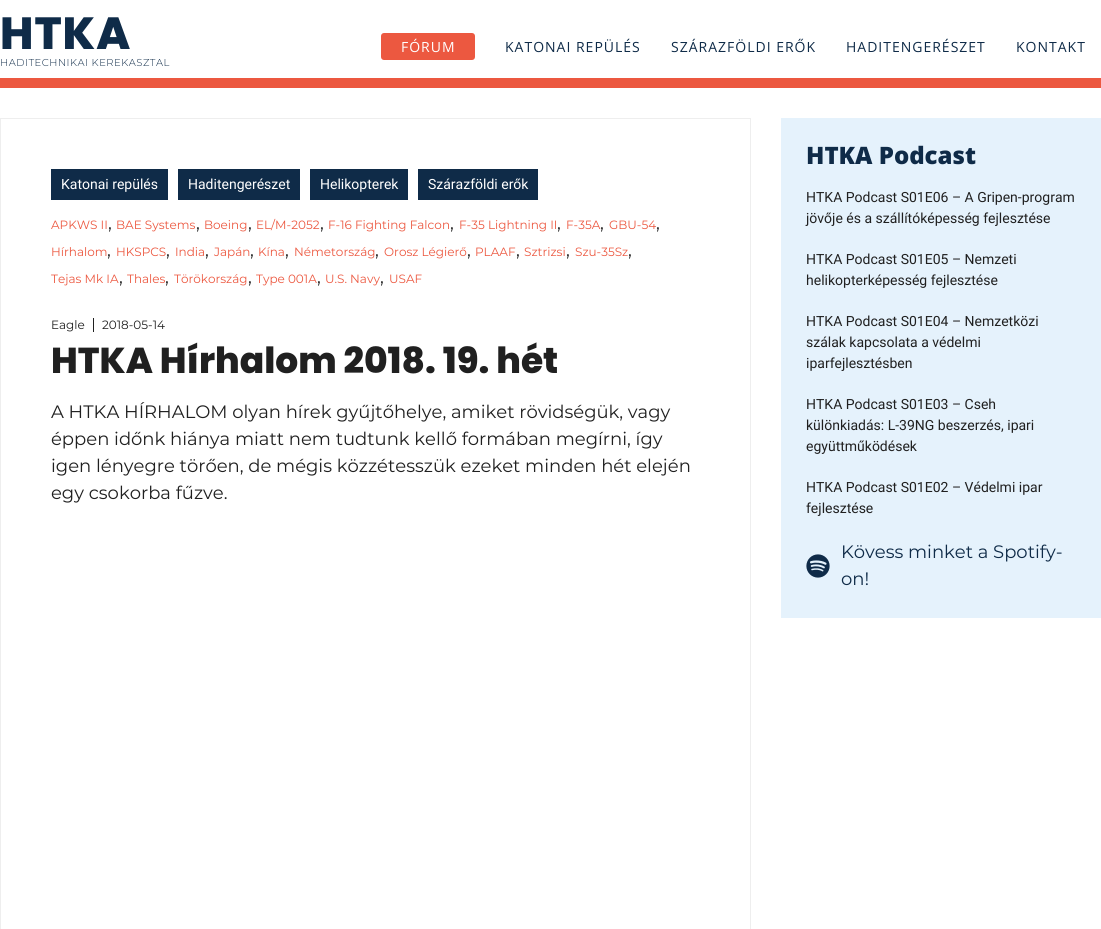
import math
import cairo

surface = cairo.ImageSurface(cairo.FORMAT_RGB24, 1101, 929)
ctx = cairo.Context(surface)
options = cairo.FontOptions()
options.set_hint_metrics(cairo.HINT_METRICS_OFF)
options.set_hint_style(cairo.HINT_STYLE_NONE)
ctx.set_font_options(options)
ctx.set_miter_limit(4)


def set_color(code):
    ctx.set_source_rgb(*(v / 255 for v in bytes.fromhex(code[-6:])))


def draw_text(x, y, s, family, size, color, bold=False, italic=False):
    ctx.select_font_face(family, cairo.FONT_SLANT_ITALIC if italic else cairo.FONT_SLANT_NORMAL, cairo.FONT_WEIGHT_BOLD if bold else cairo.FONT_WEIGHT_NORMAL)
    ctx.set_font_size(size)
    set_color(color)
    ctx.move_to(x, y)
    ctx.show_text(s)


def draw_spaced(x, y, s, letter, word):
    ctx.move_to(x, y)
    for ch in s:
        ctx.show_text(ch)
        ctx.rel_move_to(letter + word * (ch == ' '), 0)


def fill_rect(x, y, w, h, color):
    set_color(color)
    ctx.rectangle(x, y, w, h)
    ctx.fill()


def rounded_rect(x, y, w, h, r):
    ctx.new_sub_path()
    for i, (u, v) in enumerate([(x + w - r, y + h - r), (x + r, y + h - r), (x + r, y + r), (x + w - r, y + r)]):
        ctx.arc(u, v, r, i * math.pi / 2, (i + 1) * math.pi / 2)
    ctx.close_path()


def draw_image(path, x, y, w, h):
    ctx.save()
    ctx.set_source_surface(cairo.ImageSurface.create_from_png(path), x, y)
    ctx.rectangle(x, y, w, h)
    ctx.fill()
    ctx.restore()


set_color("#ffffff")
ctx.paint()
fill_rect(0, 78, 1101, 10, "#ec5840")
ctx.select_font_face("Poppins ExtraBold")
ctx.set_font_size(45)
set_color("#0f2b48")
draw_spaced(0, 49, "HTKA", 1, 0)
ctx.select_font_face("Montserrat Light")
ctx.set_font_size(10)
draw_spaced(0, 66, "HADITECHNIKAI KEREKASZTAL", 0.5, 0)
set_color("#ec5840")
rounded_rect(381, 33, 94, 27, 3)
ctx.fill()
ctx.select_font_face("Open Sans")
ctx.set_font_size(14)
set_color("#ffffff")
draw_spaced(401, 52, "FÓRUM", 1, 0)
set_color("#0f2b48")
draw_spaced(505, 52, "KATONAI REPÜLÉS", 1, 0)
draw_spaced(671, 52, "SZÁRAZFÖLDI ERŐK", 1, 0)
draw_spaced(846, 52, "HADITENGERÉSZET", 1, 0)
draw_spaced(1016, 52, "KONTAKT", 1, 0)
ctx.rectangle(0.5, 118.5, 750, 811)
set_color("#eeeeee")
ctx.set_line_width(1)
ctx.stroke()
fill_rect(51, 169, 117, 31, "#0f2b48")
draw_text(61, 189, "Katonai repülés", "Roboto", 14, "#ffffff")
fill_rect(178, 169, 122, 31, "#0f2b48")
draw_text(188, 189, "Haditengerészet", "Roboto", 14, "#ffffff")
fill_rect(310, 169, 98, 31, "#0f2b48")
draw_text(320, 189, "Helikopterek", "Roboto", 14, "#ffffff")
fill_rect(418, 169, 120, 31, "#0f2b48")
draw_text(428, 189, "Szárazföldi erők", "Roboto", 14, "#ffffff")
draw_text(51, 229, "APKWS II", "Montserrat", 12, "#ec5840")
draw_text(108, 229, ",", "Montserrat", 18, "#202020")
draw_text(116, 229, "BAE Systems", "Montserrat", 12, "#ec5840")
draw_text(196, 229, ",", "Montserrat", 18, "#202020")
draw_text(204, 229, "Boeing", "Montserrat", 12, "#ec5840")
draw_text(248, 229, ",", "Montserrat", 18, "#202020")
draw_text(256, 229, "EL/M-2052", "Montserrat", 12, "#ec5840")
draw_text(320, 229, ",", "Montserrat", 18, "#202020")
draw_text(328, 229, "F-16 Fighting Falcon", "Montserrat", 12, "#ec5840")
draw_text(450, 229, ",", "Montserrat", 18, "#202020")
draw_text(459, 229, "F-35 Lightning II", "Montserrat", 12, "#ec5840")
draw_text(557, 229, ",", "Montserrat", 18, "#202020")
draw_text(566, 229, "F-35A", "Montserrat", 12, "#ec5840")
draw_text(600, 229, ",", "Montserrat", 18, "#202020")
draw_text(609, 229, "GBU-54", "Montserrat", 12, "#ec5840")
draw_text(656, 229, ",", "Montserrat", 18, "#202020")
draw_text(51, 256, "Hírhalom", "Montserrat", 12, "#ec5840")
draw_text(107, 256, ",", "Montserrat", 18, "#202020")
draw_text(116, 256, "HKSPCS", "Montserrat", 12, "#ec5840")
draw_text(166, 256, ",", "Montserrat", 18, "#202020")
draw_text(175, 256, "India", "Montserrat", 12, "#ec5840")
draw_text(205, 256, ",", "Montserrat", 18, "#202020")
draw_text(214, 256, "Japán", "Montserrat", 12, "#ec5840")
draw_text(250, 256, ",", "Montserrat", 18, "#202020")
draw_text(258, 256, "Kína", "Montserrat", 12, "#ec5840")
draw_text(285, 256, ",", "Montserrat", 18, "#202020")
draw_text(294, 256, "Németország", "Montserrat", 12, "#ec5840")
draw_text(375, 256, ",", "Montserrat", 18, "#202020")
draw_text(384, 256, "Orosz Légierő", "Montserrat", 12, "#ec5840")
draw_text(467, 256, ",", "Montserrat", 18, "#202020")
draw_text(475, 256, "PLAAF", "Montserrat", 12, "#ec5840")
draw_text(516, 256, ",", "Montserrat", 18, "#202020")
draw_text(524, 256, "Sztrizsi", "Montserrat", 12, "#ec5840")
draw_text(566, 256, ",", "Montserrat", 18, "#202020")
draw_text(575, 256, "Szu-35Sz", "Montserrat", 12, "#ec5840")
draw_text(628, 256, ",", "Montserrat", 18, "#202020")
draw_text(51, 283, "Tejas Mk IA", "Montserrat", 12, "#ec5840")
draw_text(119, 283, ",", "Montserrat", 18, "#202020")
draw_text(127, 283, "Thales", "Montserrat", 12, "#ec5840")
draw_text(165, 283, ",", "Montserrat", 18, "#202020")
draw_text(174, 283, "Törökország", "Montserrat", 12, "#ec5840")
draw_text(248, 283, ",", "Montserrat", 18, "#202020")
draw_text(256, 283, "Type 001A", "Montserrat", 12, "#ec5840")
draw_text(317, 283, ",", "Montserrat", 18, "#202020")
draw_text(325, 283, "U.S. Navy", "Montserrat", 12, "#ec5840")
draw_text(380, 283, ",", "Montserrat", 18, "#202020")
draw_text(389, 283, "USAF", "Montserrat", 12, "#ec5840")
draw_text(51, 329, "Eagle", "Montserrat", 12, "#202020")
fill_rect(93, 318, 1, 14, "#202020")
draw_text(102, 329, "2018-05-14", "Montserrat", 12, "#202020")
draw_text(51, 373, "HTKA Hírhalom 2018. 19. hét", "Poppins ExtraBold", 36, "#202020")
draw_text(51, 418, "A HTKA HÍRHALOM olyan hírek gyűjtőhelye, amiket rövidségük, vagy", "Montserrat", 18, "#202020")
draw_text(51, 445, "éppen időnk hiánya miatt nem tudtunk kellő formában megírni, így", "Montserrat", 18, "#202020")
draw_text(51, 472, "igen lényegre törően, de mégis közzétesszük ezeket minden hét elején", "Montserrat", 18, "#202020")
draw_text(51, 499, "egy csokorba fűzve.", "Montserrat", 18, "#202020")
fill_rect(781, 118, 320, 500, "#e5f2fc")
draw_text(806, 164, "HTKA Podcast", "Open Sans ExtraBold", 24, "#0f2b48")
draw_text(806, 202, "HTKA Podcast S01E06 – A Gripen-program", "Roboto", 14, "#202020")
draw_text(806, 223, "jövője és a szállítóképesség fejlesztése", "Roboto", 14, "#202020")
draw_text(806, 264, "HTKA Podcast S01E05 – Nemzeti", "Roboto", 14, "#202020")
draw_text(806, 285, "helikopterképesség fejlesztése", "Roboto", 14, "#202020")
draw_text(806, 326, "HTKA Podcast S01E04 – Nemzetközi", "Roboto", 14, "#202020")
draw_text(806, 347, "szálak kapcsolata a védelmi", "Roboto", 14, "#202020")
draw_text(806, 368, "iparfejlesztésben", "Roboto", 14, "#202020")
draw_text(806, 409, "HTKA Podcast S01E03 – Cseh", "Roboto", 14, "#202020")
draw_text(806, 430, "különkiadás: L-39NG beszerzés, ipari", "Roboto", 14, "#202020")
draw_text(806, 451, "együttműködések", "Roboto", 14, "#202020")
draw_text(806, 492, "HTKA Podcast S01E02 – Védelmi ipar", "Roboto", 14, "#202020")
draw_text(806, 513, "fejlesztése", "Roboto", 14, "#202020")
draw_image("assets/img1.png", 806, 554, 24, 24)
draw_text(841, 558, "Kövess minket a Spotify-", "Montserrat", 18, "#0f2b48")
draw_text(841, 585, "on!", "Montserrat", 18, "#0f2b48")
surface.write_to_png("output.png")
